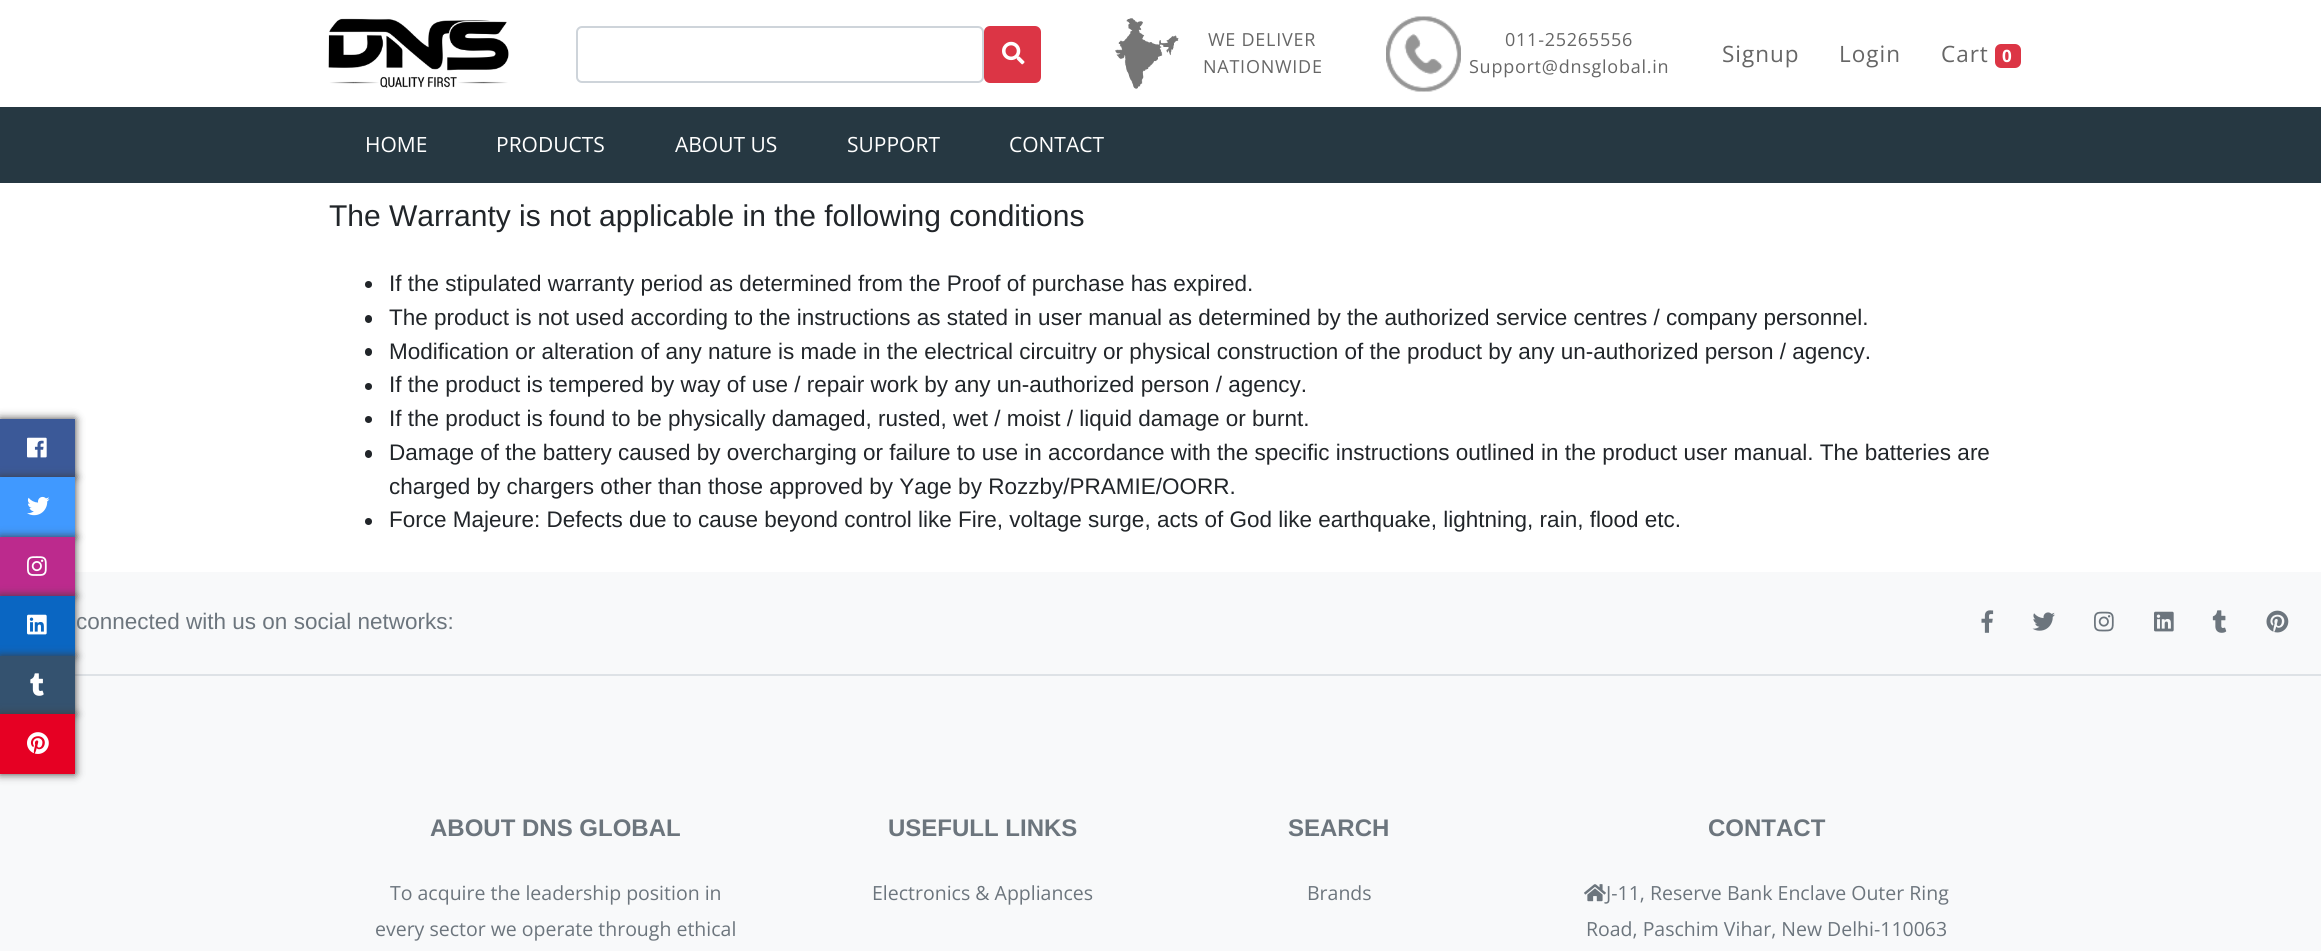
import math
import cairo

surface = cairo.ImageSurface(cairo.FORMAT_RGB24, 2321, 951)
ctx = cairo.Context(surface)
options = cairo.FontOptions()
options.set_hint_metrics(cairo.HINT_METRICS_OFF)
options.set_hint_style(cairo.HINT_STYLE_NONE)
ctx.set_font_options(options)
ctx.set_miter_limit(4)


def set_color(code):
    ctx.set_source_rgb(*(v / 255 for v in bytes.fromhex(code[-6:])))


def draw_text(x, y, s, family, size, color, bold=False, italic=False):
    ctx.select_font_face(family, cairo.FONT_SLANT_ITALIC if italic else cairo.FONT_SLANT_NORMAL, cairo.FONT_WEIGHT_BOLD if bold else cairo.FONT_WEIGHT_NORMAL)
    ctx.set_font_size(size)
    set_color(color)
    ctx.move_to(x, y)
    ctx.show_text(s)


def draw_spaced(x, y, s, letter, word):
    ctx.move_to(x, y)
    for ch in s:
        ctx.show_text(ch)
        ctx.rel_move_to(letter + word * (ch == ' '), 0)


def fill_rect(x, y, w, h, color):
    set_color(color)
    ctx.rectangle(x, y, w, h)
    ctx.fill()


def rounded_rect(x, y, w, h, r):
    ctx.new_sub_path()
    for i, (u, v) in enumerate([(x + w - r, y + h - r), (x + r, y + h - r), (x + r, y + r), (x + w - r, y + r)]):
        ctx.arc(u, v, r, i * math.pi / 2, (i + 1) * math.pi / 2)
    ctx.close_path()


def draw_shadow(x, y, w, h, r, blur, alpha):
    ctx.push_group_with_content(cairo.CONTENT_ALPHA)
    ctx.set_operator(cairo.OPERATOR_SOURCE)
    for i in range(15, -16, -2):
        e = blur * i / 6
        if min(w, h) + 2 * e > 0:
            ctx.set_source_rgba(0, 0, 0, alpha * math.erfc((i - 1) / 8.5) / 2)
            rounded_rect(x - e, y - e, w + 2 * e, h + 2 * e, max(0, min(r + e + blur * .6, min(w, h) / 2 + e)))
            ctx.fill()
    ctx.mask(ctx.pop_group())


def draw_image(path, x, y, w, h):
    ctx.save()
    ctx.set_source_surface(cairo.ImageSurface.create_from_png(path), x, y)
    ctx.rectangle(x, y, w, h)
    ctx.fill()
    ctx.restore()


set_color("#ffffff")
ctx.paint()
draw_image("assets/img1.png", 328, 18, 181, 70)
rounded_rect(577, 27, 406, 55, 5)
set_color("#ced4da")
ctx.stroke()
set_color("#dc3545")
rounded_rect(984, 26, 57, 57, 6)
ctx.fill()
draw_image("assets/img2.png", 1002, 41, 23, 24)
draw_image("assets/img3.png", 1115, 18, 64, 71)
ctx.select_font_face("Open Sans")
ctx.set_font_size(18)
set_color("#666666")
draw_spaced(1208, 46, "WE DELIVER", 0.75, 0)
draw_spaced(1203, 73, "NATIONWIDE", 0.75, 0)
draw_image("assets/img4.png", 1386, 16, 75, 76)
draw_spaced(1505, 46, "011-25265556", 0.75, 0)
draw_spaced(1469, 73, "Support@dnsglobal.in", 0.75, 0)
ctx.set_font_size(22.5)
draw_spaced(1722, 62, "Signup", 1, 0)
draw_spaced(1839, 62, "Login", 1, 0)
draw_spaced(1941, 62, "Cart", 1, 0)
set_color("#dc3545")
rounded_rect(1995, 44, 26, 24, 6)
ctx.fill()
ctx.select_font_face("Open Sans", cairo.FONT_SLANT_NORMAL, cairo.FONT_WEIGHT_BOLD)
ctx.set_font_size(17)
set_color("#ffffff")
draw_spaced(2002, 62, "0", 1, 0)
fill_rect(0, 107, 2321, 76, "#263842")
draw_text(365, 152, "HOME", "Open Sans", 21, "#ffffff")
draw_text(496, 152, "PRODUCTS", "Open Sans", 21, "#ffffff")
draw_text(675, 152, "ABOUT US", "Open Sans", 21, "#ffffff")
draw_text(847, 152, "SUPPORT", "Open Sans", 21, "#ffffff")
draw_text(1009, 152, "CONTACT", "Open Sans", 21, "#ffffff")
draw_text(329, 226, "The Warranty is not applicable in the following conditions", "Liberation Sans", 30, "#212529")
ctx.new_path()
ctx.arc(368.5, 284.5, 3.5, 0, 2 * math.pi)
ctx.fill()
draw_text(389, 291, "If the stipulated warranty period as determined from the Proof of purchase has expired.", "Liberation Sans", 22.5, "#212529")
rounded_rect(365, 315, 7, 8, 3.5)
ctx.fill()
draw_text(389, 325, "The product is not used according to the instructions as stated in user manual as determined by the authorized service centres / company personnel.", "Liberation Sans", 22.5, "#212529")
rounded_rect(365, 348, 7, 8, 3.5)
ctx.fill()
draw_text(389, 359, "Modification or alteration of any nature is made in the electrical circuitry or physical construction of the product by any un-authorized person / agency.", "Liberation Sans", 22.5, "#212529")
ctx.new_path()
ctx.arc(368.5, 386.5, 3.5, 0, 2 * math.pi)
ctx.fill()
draw_text(389, 392, "If the product is tempered by way of use / repair work by any un-authorized person / agency.", "Liberation Sans", 22.5, "#212529")
ctx.new_path()
ctx.arc(368.5, 419.5, 3.5, 0, 2 * math.pi)
ctx.fill()
draw_text(389, 426, "If the product is found to be physically damaged, rusted, wet / moist / liquid damage or burnt.", "Liberation Sans", 22.5, "#212529")
rounded_rect(365, 450, 7, 8, 3.5)
ctx.fill()
draw_text(389, 460, "Damage of the battery caused by overcharging or failure to use in accordance with the specific instructions outlined in the product user manual. The batteries are", "Liberation Sans", 22.5, "#212529")
draw_text(389, 494, "charged by chargers other than those approved by Yage by Rozzby/PRAMIE/OORR.", "Liberation Sans", 22.5, "#212529")
ctx.new_path()
ctx.arc(368.5, 521.5, 3.5, 0, 2 * math.pi)
ctx.fill()
draw_text(389, 527, "Force Majeure: Defects due to cause beyond control like Fire, voltage surge, acts of God like earthquake, lightning, rain, flood etc.", "Liberation Sans", 22.5, "#212529")
set_color("#3e3d3d")
draw_shadow(0, 419, 75, 58, 0, 4.5, 1)
fill_rect(0, 419, 75, 58, "#3b5998")
draw_image("assets/img5.png", 27, 437, 20, 21)
set_color("#3e3d3d")
draw_shadow(0, 477, 75, 60, 0, 4.5, 1)
fill_rect(0, 477, 75, 60, "#4099ff")
draw_image("assets/img6.png", 27, 496, 23, 20)
fill_rect(0, 572, 2321, 379, "#f8f9fa")
set_color("#3e3d3d")
draw_shadow(0, 537, 75, 59, 0, 4.5, 1)
fill_rect(0, 537, 75, 59, "#bc2a8d")
draw_image("assets/img7.png", 27, 556, 20, 20)
set_color("#3e3d3d")
draw_shadow(0, 596, 75, 60, 0, 4.5, 1)
fill_rect(0, 596, 75, 60, "#0a66c2")
draw_image("assets/img8.png", 27, 614, 20, 21)
fill_rect(75, 674, 2246, 2, "#dee2e6")
set_color("#3e3d3d")
draw_shadow(0, 656, 75, 58, 0, 4.5, 1)
fill_rect(0, 656, 75, 58, "#34526f")
draw_image("assets/img9.png", 30, 673, 14, 23)
set_color("#3e3d3d")
draw_shadow(0, 714, 75, 60, 0, 4.5, 1)
fill_rect(0, 714, 75, 60, "#e60023")
draw_image("assets/img10.png", 27, 732, 22, 22)
draw_text(76, 629, "connected with us on social networks:", "Liberation Sans", 22.5, "#6c757d")
draw_image("assets/img11.png", 1981, 610, 13, 23)
draw_image("assets/img12.png", 2032, 612, 23, 19)
draw_image("assets/img13.png", 2094, 611, 20, 21)
draw_image("assets/img14.png", 2154, 611, 20, 21)
draw_image("assets/img15.png", 2212, 610, 15, 23)
draw_image("assets/img16.png", 2266, 610, 23, 23)
draw_text(430, 836, "ABOUT DNS GLOBAL", "Liberation Sans", 24, "#6c757d", bold=True)
draw_text(390, 900, "To acquire the leadership position in", "Open Sans", 19.5, "#6c757d")
draw_text(375, 936, "every sector we operate through ethical", "Open Sans", 19.5, "#6c757d")
draw_text(888, 836, "USEFULL LINKS", "Liberation Sans", 24, "#6c757d", bold=True)
draw_text(872, 900, "Electronics & Appliances", "Open Sans", 19.5, "#6c757d")
draw_text(1288, 836, "SEARCH", "Liberation Sans", 24, "#6c757d", bold=True)
draw_text(1307, 900, "Brands", "Open Sans", 19.5, "#6c757d")
draw_text(1708, 836, "CONTACT", "Liberation Sans", 24, "#6c757d", bold=True)
draw_image("assets/img17.png", 1584, 884, 22, 18)
draw_text(1606, 900, "J-11, Reserve Bank Enclave Outer Ring", "Open Sans", 19.5, "#6c757d")
draw_text(1586, 936, "Road, Paschim Vihar, New Delhi-110063", "Open Sans", 19.5, "#6c757d")
surface.write_to_png("output.png")
